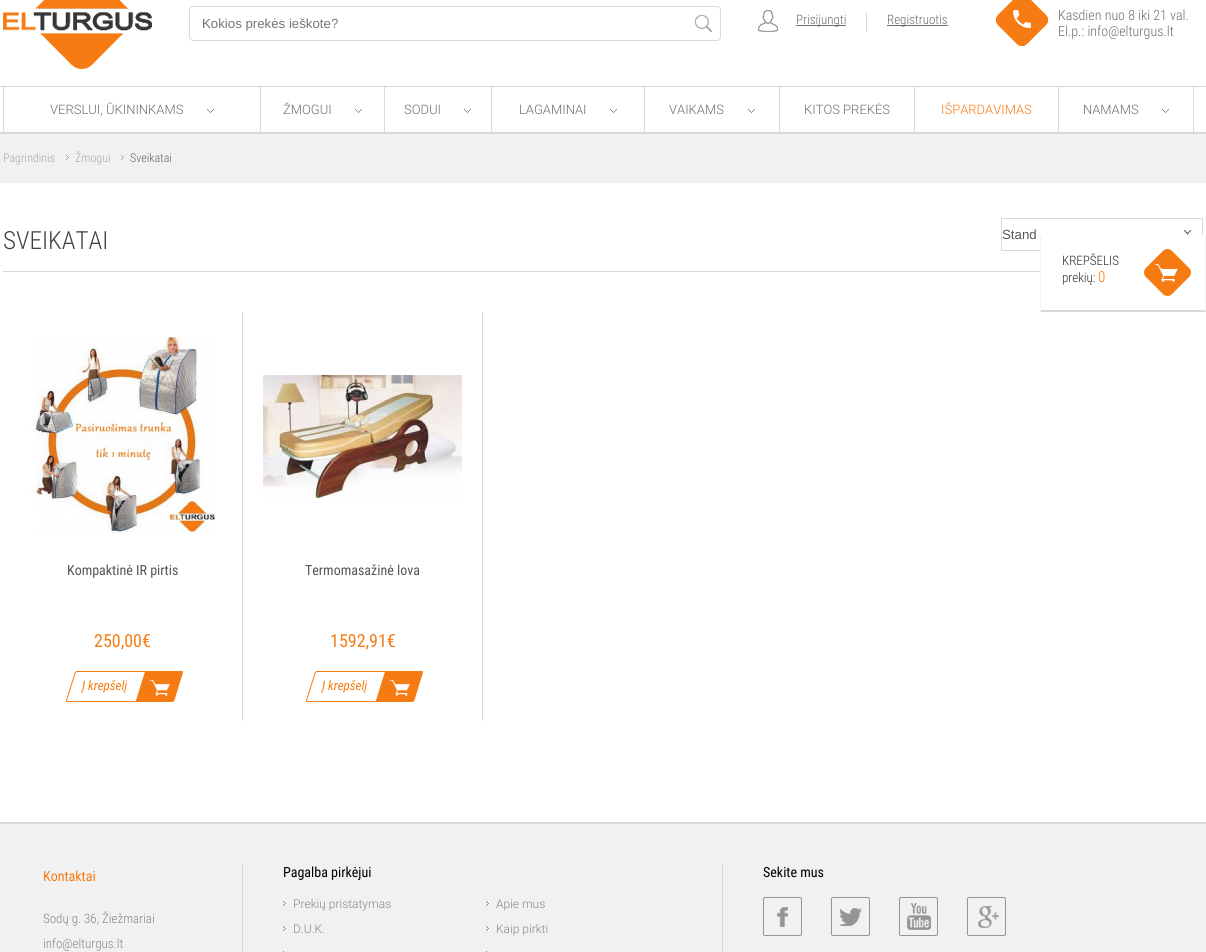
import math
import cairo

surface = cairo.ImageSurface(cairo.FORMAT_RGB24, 1206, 952)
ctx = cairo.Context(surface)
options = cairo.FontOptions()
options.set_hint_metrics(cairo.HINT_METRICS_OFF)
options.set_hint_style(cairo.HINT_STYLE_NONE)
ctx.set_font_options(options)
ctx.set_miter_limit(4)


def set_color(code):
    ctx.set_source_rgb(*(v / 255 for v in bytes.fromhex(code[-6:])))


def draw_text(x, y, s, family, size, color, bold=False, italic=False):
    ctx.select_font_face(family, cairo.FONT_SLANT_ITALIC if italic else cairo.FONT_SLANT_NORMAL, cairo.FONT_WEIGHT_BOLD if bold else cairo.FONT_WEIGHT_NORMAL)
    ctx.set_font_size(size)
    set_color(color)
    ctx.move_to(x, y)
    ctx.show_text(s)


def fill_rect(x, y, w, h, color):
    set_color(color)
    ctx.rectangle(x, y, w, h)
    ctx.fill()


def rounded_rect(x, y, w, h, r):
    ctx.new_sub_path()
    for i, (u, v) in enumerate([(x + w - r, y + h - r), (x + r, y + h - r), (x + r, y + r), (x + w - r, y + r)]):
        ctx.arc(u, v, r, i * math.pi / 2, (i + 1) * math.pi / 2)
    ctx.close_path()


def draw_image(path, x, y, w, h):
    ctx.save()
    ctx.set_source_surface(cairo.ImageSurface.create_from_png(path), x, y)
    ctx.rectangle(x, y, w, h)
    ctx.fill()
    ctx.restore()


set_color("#ffffff")
ctx.paint()
fill_rect(0, 132, 1206, 2, "#d7dadb")
fill_rect(0, 86, 1206, 1, "#d7dadb")
draw_image("assets/img1.png", 3, 0, 149, 69)
rounded_rect(189.5, 6.5, 531, 34, 3.5)
ctx.set_line_width(1)
ctx.stroke()
draw_text(202, 28, "Kokios prekės ieškote?", "Liberation Sans", 13.25, "#757575")
draw_image("assets/img2.png", 695, 15, 17, 17)
draw_image("assets/img3.png", 758, 10, 20, 22)
fill_rect(866, 12, 1, 20, "#d7dadb")
fill_rect(796, 25, 50, 1, "#6e6e6e")
draw_text(796, 24, "Prisijungti", "Roboto Condensed Light", 13, "#6e6e6e")
fill_rect(887, 25, 61, 1, "#6e6e6e")
draw_text(887, 24, "Registruotis", "Roboto Condensed Light", 13, "#6e6e6e")
draw_image("assets/img4.png", 996, 0, 52, 46)
draw_text(1058, 20, "Kasdien nuo 8 iki 21 val.", "Roboto Condensed Light", 14, "#6e6e6e")
draw_text(1058, 36, "El.p.: info@elturgus.lt", "Roboto Condensed Light", 14, "#6e6e6e")
draw_image("assets/img8.png", 1184, 230, 7, 5)
fill_rect(1202, 218, 1, 17, "#d7dadb")
ctx.save()
ctx.rectangle(1001, 218, 201, 33)
ctx.clip()
ctx.rectangle(1001.5, 218.5, 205, 32)
ctx.stroke()
ctx.restore()
fill_rect(1041, 250, 161, 1, "#ffffff")
set_color("#f3f3f3")
ctx.new_path()
ctx.move_to(1206, 235)
ctx.line_to(1206, 312)
ctx.line_to(1205, 310)
ctx.line_to(1205, 236)
ctx.close_path()
ctx.fill()
set_color("#d6d9da")
ctx.new_path()
ctx.move_to(1206, 312)
ctx.line_to(1040, 312)
ctx.line_to(1041, 310)
ctx.line_to(1205, 310)
ctx.close_path()
ctx.fill()
set_color("#f3f3f3")
ctx.new_path()
ctx.move_to(1040, 312)
ctx.line_to(1040, 235)
ctx.line_to(1041, 236)
ctx.line_to(1041, 310)
ctx.close_path()
ctx.fill()
draw_text(1062, 265, "KREPŠELIS", "Roboto Condensed Light", 13, "#2d2d2d")
draw_text(1062, 282, "prekių:", "Roboto Condensed Light", 13, "#2d2d2d")
draw_text(1098, 282, "0", "Roboto Condensed Light", 15, "#ff7500")
draw_image("assets/img5.png", 1144, 249, 47, 47)
fill_rect(3, 87, 1, 46, "#d7dadb")
draw_text(50, 114, "VERSLUI, ŪKININKAMS", "Roboto Light", 13, "#6e6e6e")
draw_image("assets/img6.png", 207, 109, 7, 4)
fill_rect(260, 87, 1, 46, "#d7dadb")
draw_text(283, 114, "ŽMOGUI", "Roboto Light", 13, "#6e6e6e")
draw_image("assets/img6.png", 355, 109, 7, 4)
fill_rect(384, 87, 1, 46, "#d7dadb")
draw_text(404, 114, "SODUI", "Roboto Light", 13, "#6e6e6e")
draw_image("assets/img6.png", 464, 109, 7, 4)
fill_rect(491, 87, 1, 46, "#d7dadb")
draw_text(519, 114, "LAGAMINAI", "Roboto Light", 13, "#6e6e6e")
draw_image("assets/img6.png", 610, 109, 7, 4)
fill_rect(644, 87, 1, 46, "#d7dadb")
draw_text(669, 114, "VAIKAMS", "Roboto Light", 13, "#6e6e6e")
draw_image("assets/img6.png", 748, 109, 7, 4)
fill_rect(779, 87, 1, 46, "#d7dadb")
draw_text(804, 114, "KITOS PREKĖS", "Roboto Light", 13, "#6e6e6e")
fill_rect(914, 87, 1, 46, "#d7dadb")
draw_text(941, 114, "IŠPARDAVIMAS", "Roboto Light", 13, "#f67b13")
fill_rect(1193, 87, 1, 46, "#d7dadb")
fill_rect(1058, 87, 1, 46, "#d7dadb")
draw_text(1083, 114, "NAMAMS", "Roboto Light", 13, "#6e6e6e")
draw_image("assets/img6.png", 1162, 109, 7, 4)
fill_rect(0, 134, 1206, 49, "#f1f1f1")
draw_text(3, 162, "Pagrindinis", "Roboto Condensed Light", 12, "#a8a8a8")
draw_image("assets/img7.png", 66, 155, 3, 5)
draw_text(75, 162, "Žmogui", "Roboto Condensed Light", 12, "#a8a8a8")
draw_image("assets/img7.png", 121, 155, 3, 5)
draw_text(130, 162, "Sveikatai", "Roboto Condensed Light", 12, "#656565")
fill_rect(3, 271, 1037, 1, "#d7dadb")
draw_text(3, 249, "SVEIKATAI", "Roboto Condensed Light", 25, "#424041")
draw_text(1002, 239, "Stand", "Liberation Sans", 13.25, "#555555")
fill_rect(242, 312, 1, 409, "#d7dadb")
draw_image("assets/img9.png", 31, 337, 184, 198)
draw_text(67, 575, "Kompaktinė IR pirtis", "Roboto Condensed", 14, "#555555")
draw_text(94, 647, "250,00€", "Roboto Condensed", 18, "#f67b13")
draw_image("assets/img10.png", 66, 671, 117, 31)
draw_text(82, 690, "Į krepšelį", "Roboto Condensed", 13, "#f67b13", italic=True)
fill_rect(482, 312, 1, 409, "#d7dadb")
draw_image("assets/img11.png", 263, 375, 199, 123)
draw_text(305, 575, "Termomasažinė lova", "Roboto Condensed", 14, "#555555")
draw_text(330, 647, "1592,91€", "Roboto Condensed", 18, "#f67b13")
draw_image("assets/img10.png", 306, 671, 117, 31)
draw_text(322, 690, "Į krepšelį", "Roboto Condensed", 13, "#f67b13", italic=True)
fill_rect(0, 824, 1206, 128, "#f1f1f1")
fill_rect(0, 822, 1206, 2, "#d7dadb")
fill_rect(242, 864, 1, 88, "#d7dadb")
draw_text(43, 881, "Kontaktai", "Roboto Condensed", 14, "#f67b13")
draw_text(43, 923, "Sodų g. 36, Žiežmariai", "Roboto Condensed Light", 13, "#878787")
draw_text(43, 948, "info@elturgus.lt", "Roboto Condensed Light", 13, "#878787")
fill_rect(722, 864, 1, 88, "#d7dadb")
draw_text(283, 877, "Pagalba pirkėjui", "Roboto Condensed", 14, "#000000")
draw_image("assets/img12.png", 283, 901, 3, 5)
draw_text(293, 908, "Prekių pristatymas", "Roboto Light", 12, "#878787")
draw_image("assets/img12.png", 486, 901, 3, 5)
draw_text(496, 908, "Apie mus", "Roboto Light", 12, "#878787")
draw_image("assets/img12.png", 283, 926, 3, 5)
draw_text(293, 933, "D.U.K.", "Roboto Light", 12, "#878787")
draw_image("assets/img12.png", 486, 926, 3, 5)
draw_text(496, 933, "Kaip pirkti", "Roboto Light", 12, "#878787")
fill_rect(283, 951, 1, 1, "#878787")
fill_rect(486, 951, 1, 1, "#878787")
draw_text(763, 877, "Sekite mus", "Roboto Condensed", 14, "#000000")
draw_image("assets/img13.png", 763, 897, 39, 39)
draw_image("assets/img14.png", 831, 897, 39, 39)
draw_image("assets/img15.png", 899, 897, 39, 39)
draw_image("assets/img16.png", 967, 897, 39, 39)
surface.write_to_png("output.png")
